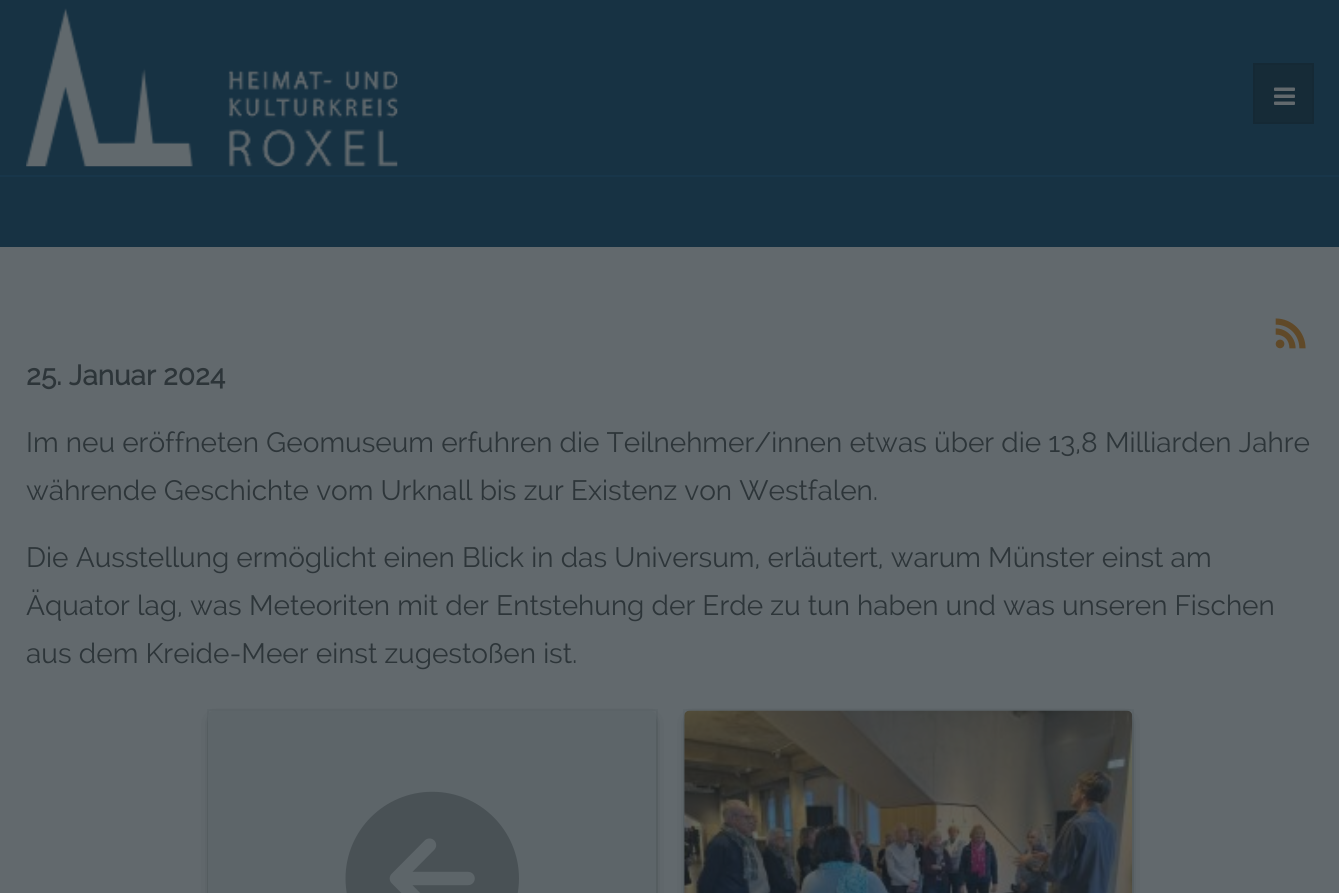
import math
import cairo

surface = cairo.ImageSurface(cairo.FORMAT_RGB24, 1339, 893)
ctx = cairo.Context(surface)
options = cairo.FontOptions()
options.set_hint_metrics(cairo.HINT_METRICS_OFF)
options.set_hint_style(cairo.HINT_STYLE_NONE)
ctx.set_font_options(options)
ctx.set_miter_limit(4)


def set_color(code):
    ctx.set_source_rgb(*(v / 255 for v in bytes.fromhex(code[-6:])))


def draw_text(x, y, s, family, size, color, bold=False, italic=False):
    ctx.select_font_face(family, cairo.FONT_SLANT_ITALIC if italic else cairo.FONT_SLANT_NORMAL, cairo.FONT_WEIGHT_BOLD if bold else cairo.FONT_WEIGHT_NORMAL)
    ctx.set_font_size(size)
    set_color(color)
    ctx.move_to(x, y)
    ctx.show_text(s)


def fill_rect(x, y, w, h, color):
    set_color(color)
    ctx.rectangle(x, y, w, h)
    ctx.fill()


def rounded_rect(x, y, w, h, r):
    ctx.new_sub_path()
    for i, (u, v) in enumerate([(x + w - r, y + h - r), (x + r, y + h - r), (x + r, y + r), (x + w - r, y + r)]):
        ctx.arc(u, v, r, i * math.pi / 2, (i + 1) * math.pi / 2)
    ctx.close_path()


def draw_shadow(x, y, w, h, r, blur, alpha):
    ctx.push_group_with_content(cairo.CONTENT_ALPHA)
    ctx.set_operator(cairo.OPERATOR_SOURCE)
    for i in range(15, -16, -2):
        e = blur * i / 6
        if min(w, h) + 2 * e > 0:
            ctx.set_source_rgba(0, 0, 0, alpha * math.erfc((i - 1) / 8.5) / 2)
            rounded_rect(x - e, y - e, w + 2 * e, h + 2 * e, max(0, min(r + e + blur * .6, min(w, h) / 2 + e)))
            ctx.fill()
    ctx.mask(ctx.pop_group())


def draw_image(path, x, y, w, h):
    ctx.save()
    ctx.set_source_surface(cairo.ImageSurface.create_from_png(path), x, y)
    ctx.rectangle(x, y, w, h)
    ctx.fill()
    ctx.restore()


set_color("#62696d")
ctx.paint()
fill_rect(0, 0, 1339, 175, "#173243")
draw_image("assets/img1.png", 26, 8, 372, 159)
set_color("#162b37")
ctx.rectangle(1254, 64, 59, 59)
ctx.fill_preserve()
set_color("#152935")
ctx.stroke()
draw_image("assets/img2.png", 1274, 87, 21, 18)
fill_rect(0, 177, 1339, 70, "#173243")
fill_rect(0, 175, 1339, 2, "#18364a")
draw_image("assets/img3.png", 1275, 318, 31, 31)
draw_text(26, 385, "25. Januar 2024", "Raleway", 28, "#2d3539", bold=True)
draw_text(26, 452, "Im neu eröffneten Geomuseum erfuhren die Teilnehmer/innen etwas über die 13,8 Milliarden Jahre", "Raleway", 28, "#2d3539")
draw_text(26, 500, "währende Geschichte vom Urknall bis zur Existenz von Westfalen.", "Raleway", 28, "#2d3539")
draw_text(26, 567, "Die Ausstellung ermöglicht einen Blick in das Universum, erläutert, warum Münster einst am", "Raleway", 28, "#2d3539")
draw_text(26, 615, "Äquator lag, was Meteoriten mit der Entstehung der Erde zu tun haben und was unseren Fischen", "Raleway", 28, "#2d3539")
draw_text(26, 663, "aus dem Kreide-Meer einst zugestoßen ist.", "Raleway", 28, "#2d3539")
ctx.rectangle(208, 710, 449, 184)
set_color("#5d6569")
ctx.stroke()
set_color("#131a1e")
draw_shadow(214, 721, 437, 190, 0, 6, 0.7)
set_color("#5d6569")
rounded_rect(208, 711, 448, 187, 5)
ctx.fill()
draw_image("assets/img4.png", 345, 791, 174, 102)
ctx.rectangle(684, 710, 449, 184)
ctx.stroke()
set_color("#131a1e")
draw_shadow(690, 721, 437, 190, 0, 6, 0.7)
draw_image("assets/img5.png", 684, 710, 449, 183)
surface.write_to_png("output.png")
